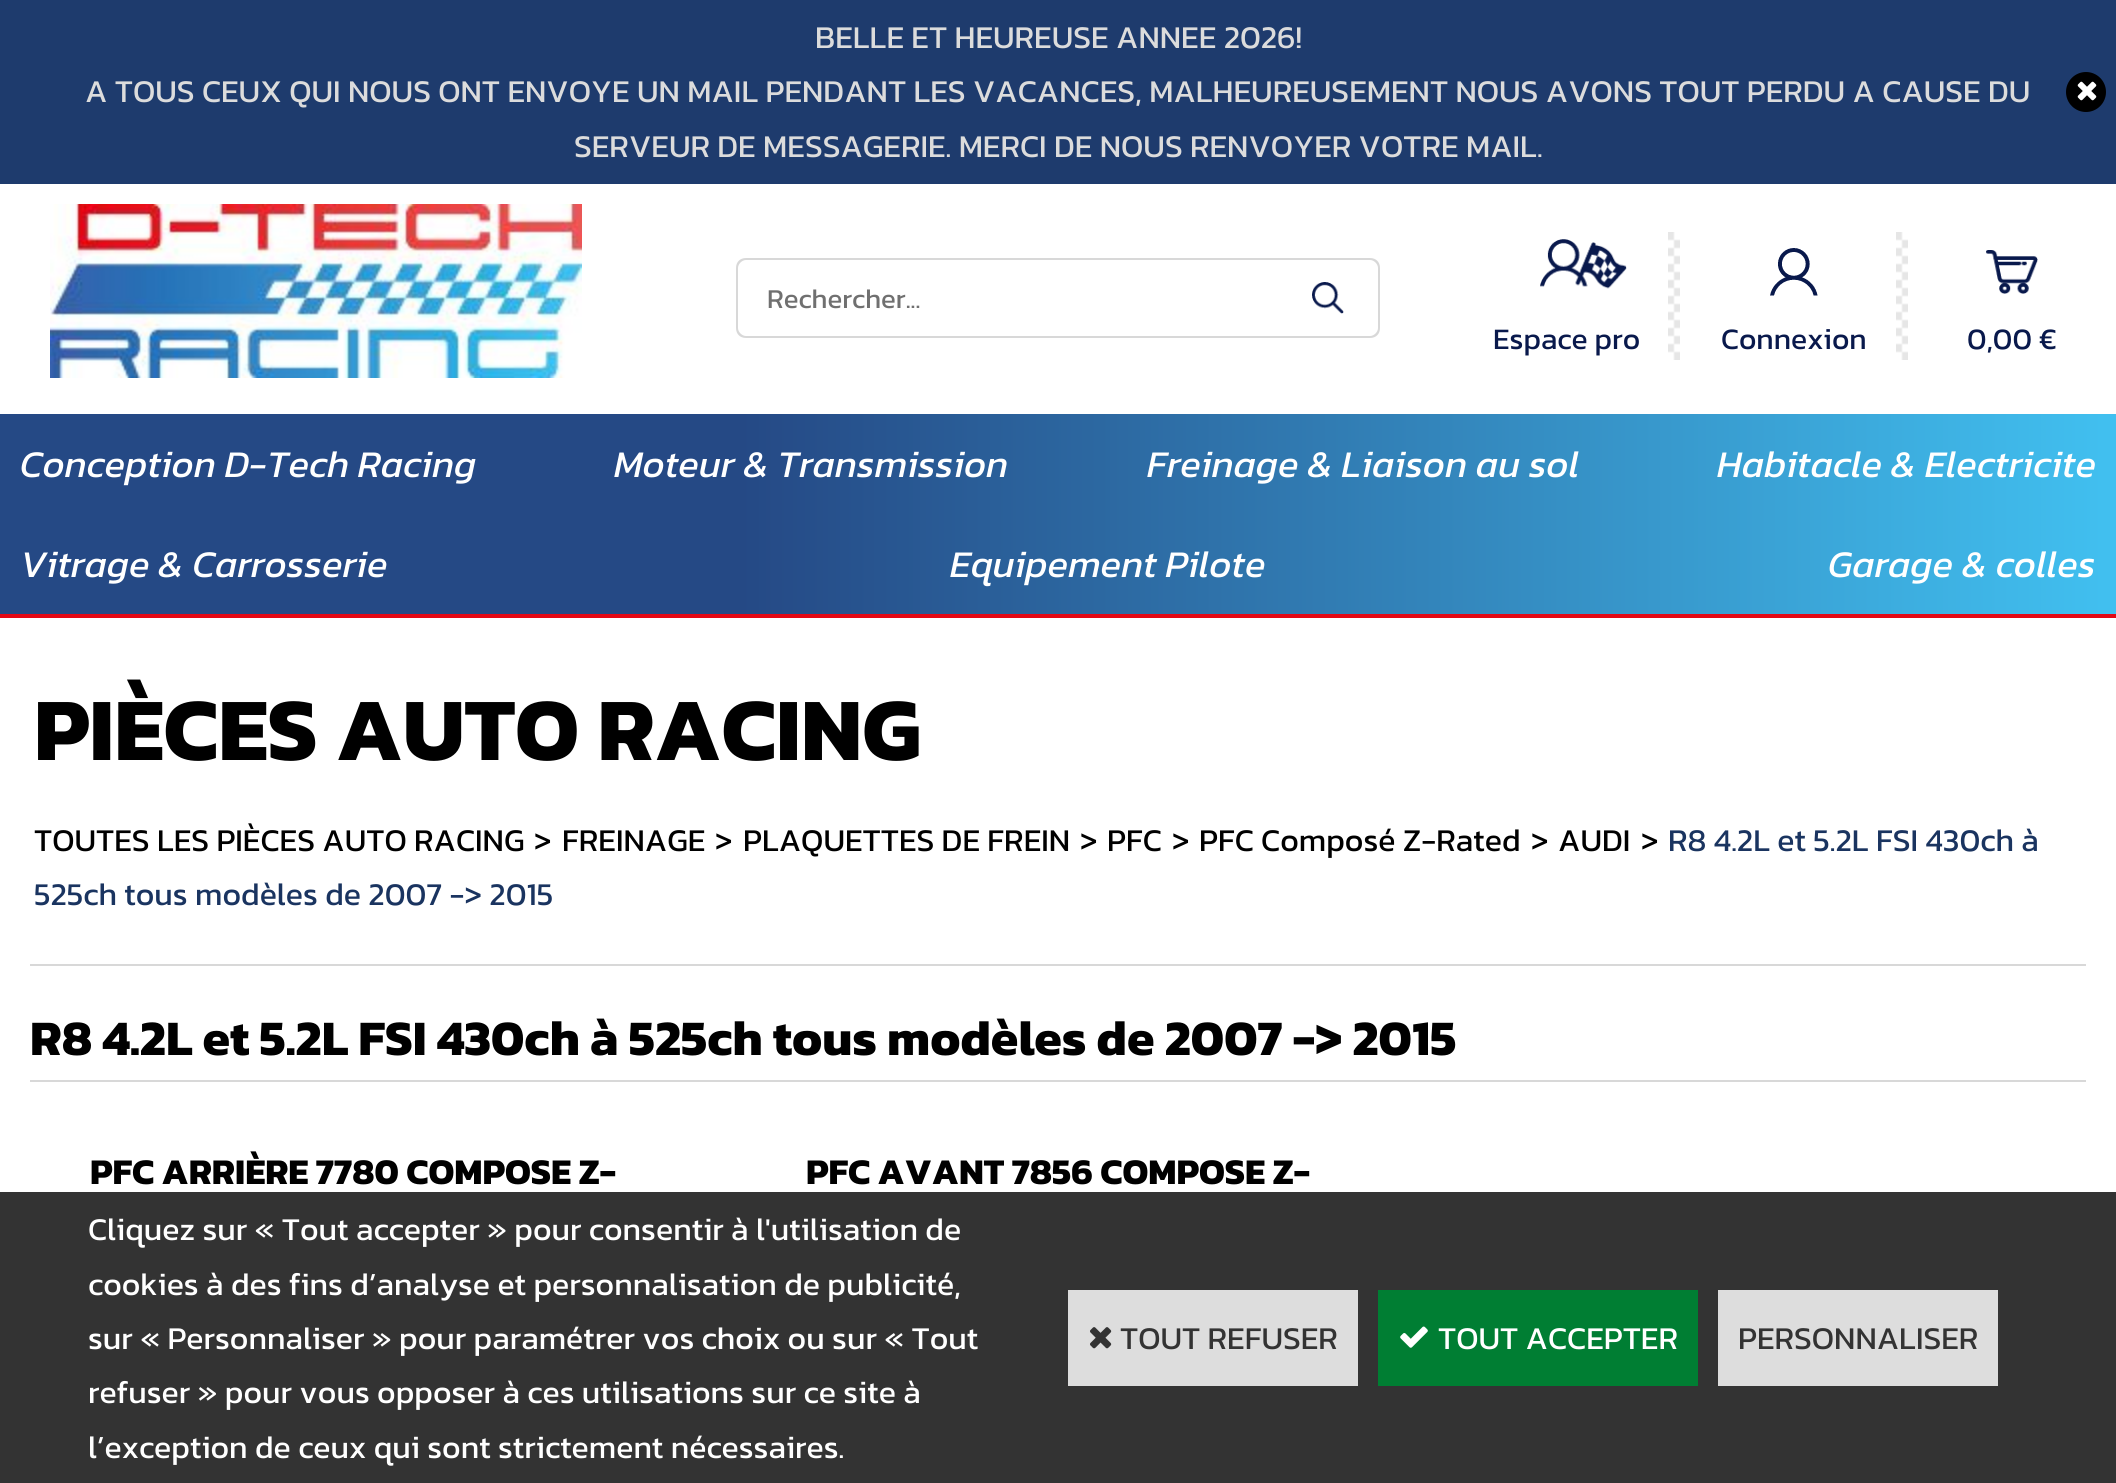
import math
import cairo

surface = cairo.ImageSurface(cairo.FORMAT_RGB24, 2116, 1483)
ctx = cairo.Context(surface)
options = cairo.FontOptions()
options.set_hint_metrics(cairo.HINT_METRICS_OFF)
options.set_hint_style(cairo.HINT_STYLE_NONE)
ctx.set_font_options(options)
ctx.set_miter_limit(4)


def set_color(code):
    ctx.set_source_rgb(*(v / 255 for v in bytes.fromhex(code[-6:])))


def draw_text(x, y, s, family, size, color, bold=False, italic=False):
    ctx.select_font_face(family, cairo.FONT_SLANT_ITALIC if italic else cairo.FONT_SLANT_NORMAL, cairo.FONT_WEIGHT_BOLD if bold else cairo.FONT_WEIGHT_NORMAL)
    ctx.set_font_size(size)
    set_color(color)
    ctx.move_to(x, y)
    ctx.show_text(s)


def fill_rect(x, y, w, h, color):
    set_color(color)
    ctx.rectangle(x, y, w, h)
    ctx.fill()


def draw_image(path, x, y, w, h):
    ctx.save()
    ctx.set_source_surface(cairo.ImageSurface.create_from_png(path), x, y)
    ctx.rectangle(x, y, w, h)
    ctx.fill()
    ctx.restore()


set_color("#ffffff")
ctx.paint()
fill_rect(0, 0, 2116, 184, "#1e3b6d")
draw_text(815, 48, "BELLE ET HEUREUSE ANNEE 2026!", "Kanit", 32, "#dcdcdc")
draw_text(85, 102, "A TOUS CEUX QUI NOUS ONT ENVOYE UN MAIL PENDANT LES VACANCES, MALHEUREUSEMENT NOUS AVONS TOUT PERDU A CAUSE DU", "Kanit", 32, "#dcdcdc")
draw_text(574, 157, "SERVEUR DE MESSAGERIE. MERCI DE NOUS RENVOYER VOTRE MAIL.", "Kanit", 32, "#dcdcdc")
set_color("#000000")
ctx.new_path()
ctx.arc(2086, 92, 20, 0, 2 * math.pi)
ctx.fill()
draw_image("assets/img1.png", 2077, 81, 20, 20)
draw_image("assets/img2.png", 50, 204, 532, 174)
set_color("#d8d8d8")
ctx.set_fill_rule(cairo.FILL_RULE_EVEN_ODD)
ctx.new_path()
ctx.move_to(746, 258)
ctx.line_to(1278, 258)
ctx.line_to(1278, 338)
ctx.line_to(746, 338)
ctx.curve_to(740, 338, 736, 334, 736, 328)
ctx.line_to(736, 268)
ctx.curve_to(736, 262, 740, 258, 746, 258)
ctx.close_path()
ctx.move_to(746, 260)
ctx.line_to(1278, 260)
ctx.line_to(1278, 336)
ctx.line_to(746, 336)
ctx.curve_to(742, 336, 738, 332, 738, 328)
ctx.line_to(738, 268)
ctx.curve_to(738, 264, 742, 260, 746, 260)
ctx.close_path()
ctx.fill()
draw_text(767, 308, "Rechercher...", "Kanit", 27.5, "#707070")
set_color("#d8d8d8")
ctx.new_path()
ctx.move_to(1278, 258)
ctx.line_to(1370, 258)
ctx.curve_to(1376, 258, 1380, 262, 1380, 268)
ctx.line_to(1380, 328)
ctx.curve_to(1380, 334, 1376, 338, 1370, 338)
ctx.line_to(1278, 338)
ctx.close_path()
ctx.move_to(1278, 260)
ctx.line_to(1370, 260)
ctx.curve_to(1374, 260, 1378, 264, 1378, 268)
ctx.line_to(1378, 328)
ctx.curve_to(1378, 332, 1374, 336, 1370, 336)
ctx.line_to(1278, 336)
ctx.close_path()
ctx.fill()
draw_image("assets/img3.png", 1312, 282, 32, 32)
draw_image("assets/img4.png", 1540, 239, 87, 50)
draw_text(1493, 349, "Espace pro", "Kanit", 30, "#09194c")
draw_image("assets/img5.png", 1668, 232, 12, 128)
draw_image("assets/img6.png", 1770, 248, 48, 48)
draw_text(1721, 349, "Connexion", "Kanit", 30, "#09194c")
draw_image("assets/img5.png", 1896, 232, 12, 128)
draw_image("assets/img7.png", 1986, 250, 52, 44)
draw_text(1967, 349, "0,00 €", "Kanit", 30, "#09194c")
gradient = cairo.LinearGradient(2116, 516, 0, 516)
gradient.add_color_stop_rgba(0, 0.255, 0.753, 0.941, 1)
gradient.add_color_stop_rgba(0.65, 0.145, 0.286, 0.522, 1)
ctx.set_source(gradient)
ctx.rectangle(0, 414, 2116, 200)
ctx.fill()
fill_rect(0, 614, 2116, 4, "#e30814")
draw_text(20, 477, "Conception D-Tech Racing", "Kanit", 38, "#ffffff", italic=True)
draw_text(614, 477, "Moteur & Transmission", "Kanit", 38, "#ffffff", italic=True)
draw_text(1147, 477, "Freinage & Liaison au sol", "Kanit", 38, "#ffffff", italic=True)
draw_text(1717, 477, "Habitacle & Electricite", "Kanit", 38, "#ffffff", italic=True)
draw_text(20, 577, "Vitrage & Carrosserie", "Kanit", 38, "#ffffff", italic=True)
draw_text(950, 577, "Equipement Pilote", "Kanit", 38, "#ffffff", italic=True)
draw_text(1828, 577, "Garage & colles", "Kanit", 38, "#ffffff", italic=True)
fill_rect(30, 964, 2056, 2, "#d8d8d8")
draw_text(34, 760, "PIÈCES AUTO RACING", "Kanit", 90, "#000000", bold=True)
draw_text(34, 851, "TOUTES LES PIÈCES AUTO RACING", "Kanit", 32, "#000000")
draw_text(534, 851, ">", "Kanit", 32, "#000000")
draw_text(562, 851, "FREINAGE", "Kanit", 32, "#000000")
draw_text(715, 851, ">", "Kanit", 32, "#000000")
draw_text(743, 851, "PLAQUETTES DE FREIN", "Kanit", 32, "#000000")
draw_text(1080, 851, ">", "Kanit", 32, "#000000")
draw_text(1107, 851, "PFC", "Kanit", 32, "#000000")
draw_text(1172, 851, ">", "Kanit", 32, "#000000")
draw_text(1199, 851, "PFC Composé Z-Rated", "Kanit", 32, "#000000")
draw_text(1531, 851, ">", "Kanit", 32, "#000000")
draw_text(1558, 851, "AUDI", "Kanit", 32, "#000000")
draw_text(1641, 851, ">", "Kanit", 32, "#000000")
draw_text(1668, 851, "R8 4.2L et 5.2L FSI 430ch à", "Kanit", 32, "#1a3460")
draw_text(34, 905, "525ch tous modèles de 2007 -> 2015", "Kanit", 32, "#1a3460")
fill_rect(30, 1080, 2056, 2, "#d8d8d8")
draw_text(30, 1055, "R8 4.2L et 5.2L FSI 430ch à 525ch tous modèles de 2007 -> 2015", "Kanit", 50, "#000000", bold=True)
draw_text(90, 1184, "PFC ARRIÈRE 7780 COMPOSE Z-", "Kanit", 36.5, "#000000", bold=True)
draw_text(806, 1184, "PFC AVANT 7856 COMPOSE Z-", "Kanit", 36.5, "#000000", bold=True)
fill_rect(0, 1192, 2116, 291, "#333333")
draw_text(88, 1240, "Cliquez sur « Tout accepter » pour consentir à l'utilisation de", "Kanit", 32, "#ffffff")
draw_text(88, 1295, "cookies à des fins d’analyse et personnalisation de publicité,", "Kanit", 32, "#ffffff")
draw_text(88, 1349, "sur « Personnaliser » pour paramétrer vos choix ou sur « Tout", "Kanit", 32, "#ffffff")
draw_text(88, 1403, "refuser » pour vous opposer à ces utilisations sur ce site à", "Kanit", 32, "#ffffff")
draw_text(88, 1458, "l’exception de ceux qui sont strictement nécessaires.", "Kanit", 32, "#ffffff")
fill_rect(1068, 1290, 290, 96, "#dddddd")
draw_image("assets/img8.png", 1090, 1327, 22, 22)
draw_text(1120, 1349, "TOUT REFUSER", "Kanit", 32, "#333333")
fill_rect(1378, 1290, 320, 96, "#007e33")
draw_image("assets/img9.png", 1400, 1326, 28, 22)
draw_text(1438, 1349, "TOUT ACCEPTER", "Kanit", 32, "#ffffff")
fill_rect(1718, 1290, 280, 96, "#dddddd")
draw_text(1738, 1349, "PERSONNALISER", "Kanit", 32, "#333333")
surface.write_to_png("output.png")
